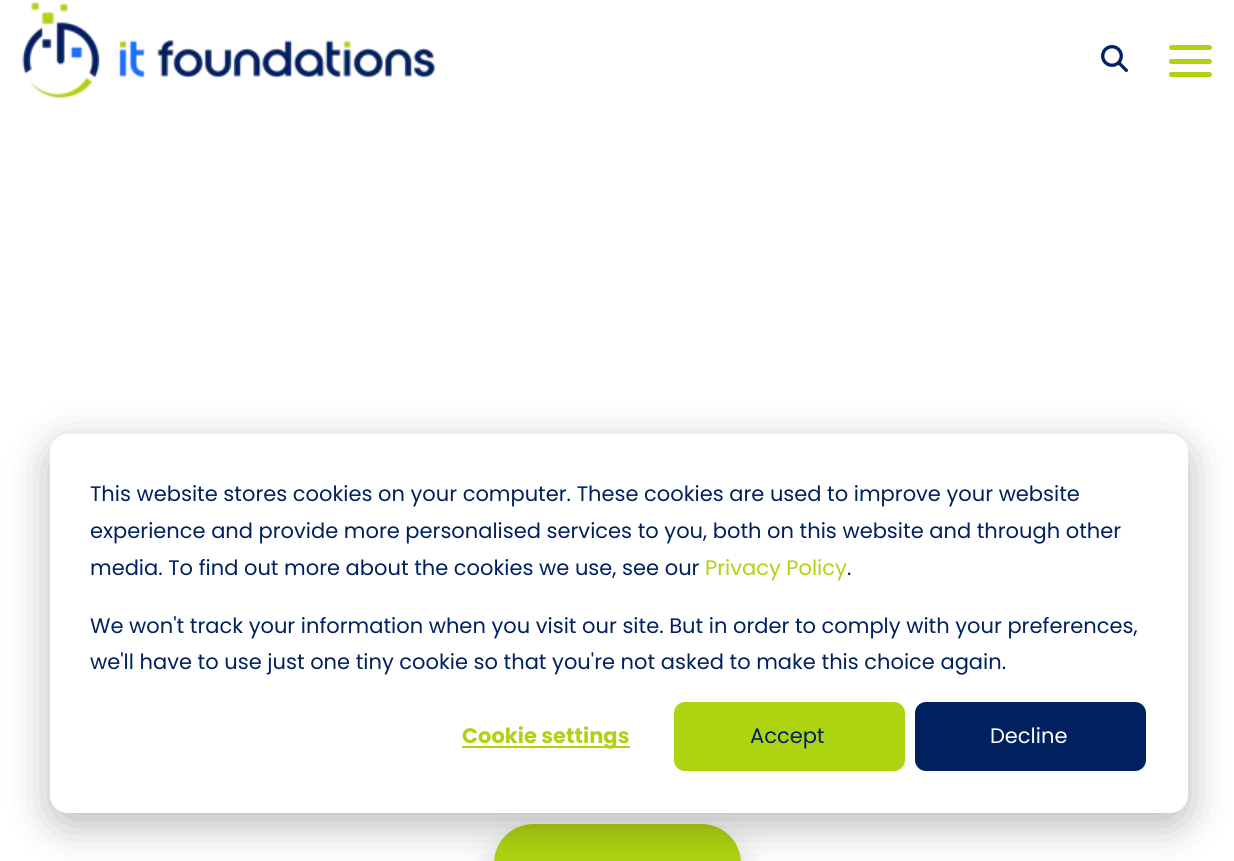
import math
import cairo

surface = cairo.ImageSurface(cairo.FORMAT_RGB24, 1234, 861)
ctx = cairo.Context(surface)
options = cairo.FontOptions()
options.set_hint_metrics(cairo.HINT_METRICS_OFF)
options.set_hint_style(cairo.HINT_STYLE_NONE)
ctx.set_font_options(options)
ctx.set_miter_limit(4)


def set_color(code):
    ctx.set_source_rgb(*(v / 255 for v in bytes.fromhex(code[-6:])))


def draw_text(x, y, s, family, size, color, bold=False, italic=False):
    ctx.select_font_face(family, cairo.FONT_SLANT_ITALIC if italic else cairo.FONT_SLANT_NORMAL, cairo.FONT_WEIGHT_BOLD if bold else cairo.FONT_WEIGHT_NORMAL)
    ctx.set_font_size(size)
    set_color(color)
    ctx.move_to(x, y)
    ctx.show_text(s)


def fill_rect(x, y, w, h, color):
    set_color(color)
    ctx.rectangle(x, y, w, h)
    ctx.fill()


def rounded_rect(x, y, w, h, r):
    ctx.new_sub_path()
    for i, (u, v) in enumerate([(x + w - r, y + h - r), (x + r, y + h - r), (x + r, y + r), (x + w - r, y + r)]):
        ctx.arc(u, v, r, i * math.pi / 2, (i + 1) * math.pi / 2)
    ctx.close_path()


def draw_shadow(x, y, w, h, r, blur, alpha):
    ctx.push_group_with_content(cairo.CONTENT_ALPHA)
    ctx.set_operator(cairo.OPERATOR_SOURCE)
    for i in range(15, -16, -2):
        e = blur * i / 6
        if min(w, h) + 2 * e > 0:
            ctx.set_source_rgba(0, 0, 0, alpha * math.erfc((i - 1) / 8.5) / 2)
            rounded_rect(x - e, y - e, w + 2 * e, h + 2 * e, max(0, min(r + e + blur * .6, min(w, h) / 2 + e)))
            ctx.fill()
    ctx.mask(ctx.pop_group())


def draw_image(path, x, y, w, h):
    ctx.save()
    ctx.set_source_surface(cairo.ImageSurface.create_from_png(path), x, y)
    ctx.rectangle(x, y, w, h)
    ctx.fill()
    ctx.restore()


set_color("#ffffff")
ctx.paint()
draw_image("assets/img1.png", 22, 1, 413, 97)
draw_image("assets/img2.png", 1101, 45, 27, 27)
set_color("#aed311")
rounded_rect(1169, 45, 43, 5, 2.5)
ctx.fill()
rounded_rect(1169, 59, 43, 5, 2.5)
ctx.fill()
rounded_rect(1169, 72, 43, 5, 2.5)
ctx.fill()
set_color("#000000")
draw_shadow(494, 839, 247, 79, 39.5, 15, 0.2)
set_color("#aed311")
rounded_rect(494, 824, 247, 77, 39.5)
ctx.fill()
set_color("#000000")
draw_shadow(50, 446, 1138, 379, 18, 21, 0.28)
set_color("#ffffff")
rounded_rect(50, 434, 1138, 379, 18)
ctx.fill()
draw_text(90, 501, "This website stores cookies on your computer. These cookies are used to improve your website", "Poppins", 21, "#002060")
draw_text(90, 538, "experience and provide more personalised services to you, both on this website and through other", "Poppins", 21, "#002060")
draw_text(90, 575, "media. To find out more about the cookies we use, see our", "Poppins", 21, "#002060")
draw_text(705, 575, "Privacy Policy", "Poppins", 21, "#aed311")
draw_text(847, 575, ".", "Poppins", 21, "#002060")
draw_text(90, 633, "We won't track your information when you visit our site. But in order to comply with your preferences,", "Poppins", 21, "#002060")
draw_text(90, 669, "we'll have to use just one tiny cookie so that you're not asked to make this choice again.", "Poppins", 21, "#002060")
fill_rect(462, 746, 168, 2, "#aed311")
draw_text(462, 743, "Cookie settings", "Poppins", 21, "#aed311", bold=True)
rounded_rect(675, 703, 229, 67, 10)
ctx.fill_preserve()
ctx.stroke()
draw_text(750, 743, "Accept", "Poppins", 21, "#002060")
rounded_rect(916, 703, 229, 67, 10)
ctx.fill_preserve()
ctx.stroke()
draw_text(990, 743, "Decline", "Poppins", 21, "#ffffff")
surface.write_to_png("output.png")
